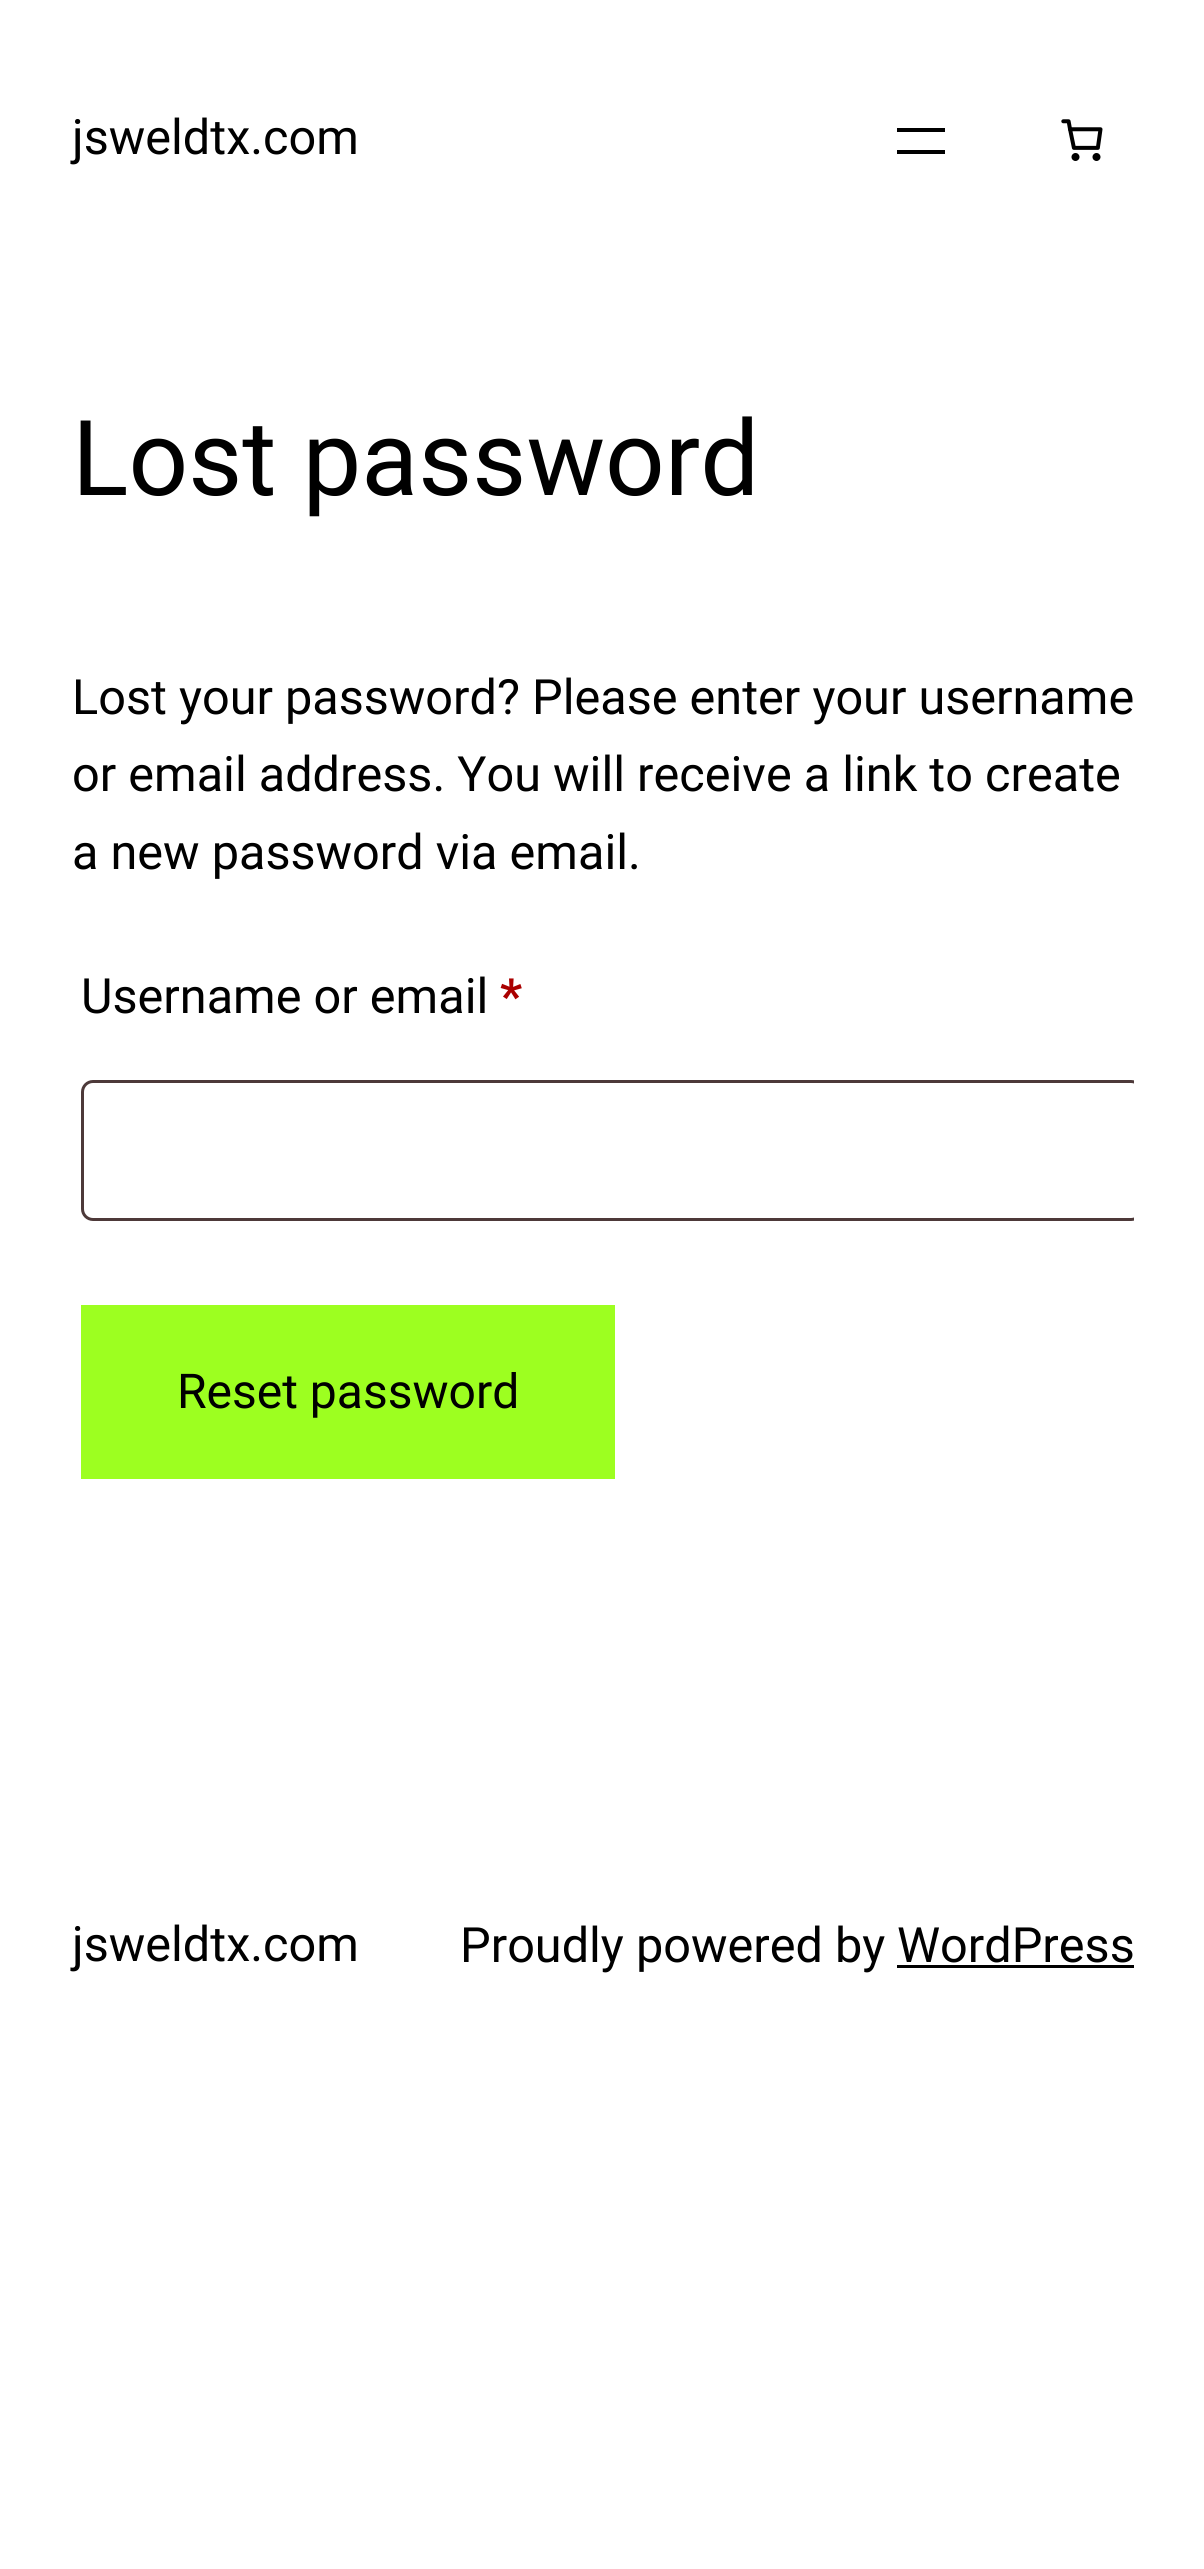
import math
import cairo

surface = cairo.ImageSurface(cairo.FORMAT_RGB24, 1204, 2569)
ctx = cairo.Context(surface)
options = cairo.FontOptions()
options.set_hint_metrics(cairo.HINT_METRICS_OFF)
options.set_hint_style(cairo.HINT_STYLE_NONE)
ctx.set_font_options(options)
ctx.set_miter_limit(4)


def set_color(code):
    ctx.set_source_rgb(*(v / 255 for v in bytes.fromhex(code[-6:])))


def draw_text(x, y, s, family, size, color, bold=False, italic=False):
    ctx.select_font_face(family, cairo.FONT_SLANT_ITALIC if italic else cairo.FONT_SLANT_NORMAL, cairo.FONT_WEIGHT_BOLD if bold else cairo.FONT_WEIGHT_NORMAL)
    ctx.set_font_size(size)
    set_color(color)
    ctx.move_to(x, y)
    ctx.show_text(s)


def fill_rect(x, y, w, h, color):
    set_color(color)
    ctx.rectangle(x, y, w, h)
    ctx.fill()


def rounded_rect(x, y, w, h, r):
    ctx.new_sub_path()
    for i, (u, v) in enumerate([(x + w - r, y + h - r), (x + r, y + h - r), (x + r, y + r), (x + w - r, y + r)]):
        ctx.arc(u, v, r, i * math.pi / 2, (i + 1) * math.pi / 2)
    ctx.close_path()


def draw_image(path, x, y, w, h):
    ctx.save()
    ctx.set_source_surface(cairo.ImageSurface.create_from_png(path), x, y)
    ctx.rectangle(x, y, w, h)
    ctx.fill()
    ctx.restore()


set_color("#ffffff")
ctx.paint()
draw_text(72, 154, "jsweldtx.com", "Roboto", 48.6, "#000000")
fill_rect(897, 128, 48, 4, "#000000")
fill_rect(897, 150, 48, 4, "#000000")
draw_image("assets/img1.png", 1061, 119, 42, 42)
draw_text(72, 495, "Lost password", "Roboto", 104.75, "#000000")
draw_text(72, 714, "Lost your password? Please enter your username", "Roboto", 48.6, "#000000")
draw_text(72, 791, "or email address. You will receive a link to create", "Roboto", 48.6, "#000000")
draw_text(72, 869, "a new password via email.", "Roboto", 48.6, "#000000")
draw_text(81, 1013, "Username or email", "Roboto", 48.6, "#000000")
draw_text(500, 1013, "*", "Roboto", 48.6, "#aa0000", bold=True)
ctx.save()
ctx.rectangle(72, 612, 1062, 894)
ctx.clip()
rounded_rect(82.5, 1081.5, 1059, 138, 10.5)
set_color("#4d3939")
ctx.set_line_width(3)
ctx.stroke()
ctx.restore()
fill_rect(81, 1305, 534, 174, "#9dff20")
draw_text(177, 1408, "Reset password", "Roboto", 48, "#000000")
draw_text(72, 1961, "jsweldtx.com", "Roboto", 48.6, "#000000")
draw_text(460, 1962, "Proudly powered by", "Roboto", 48.6, "#000000")
draw_text(897, 1962, "WordPress", "Roboto", 48.6, "#000000")
fill_rect(897, 1965, 237, 3, "#000000")
surface.write_to_png("output.png")
